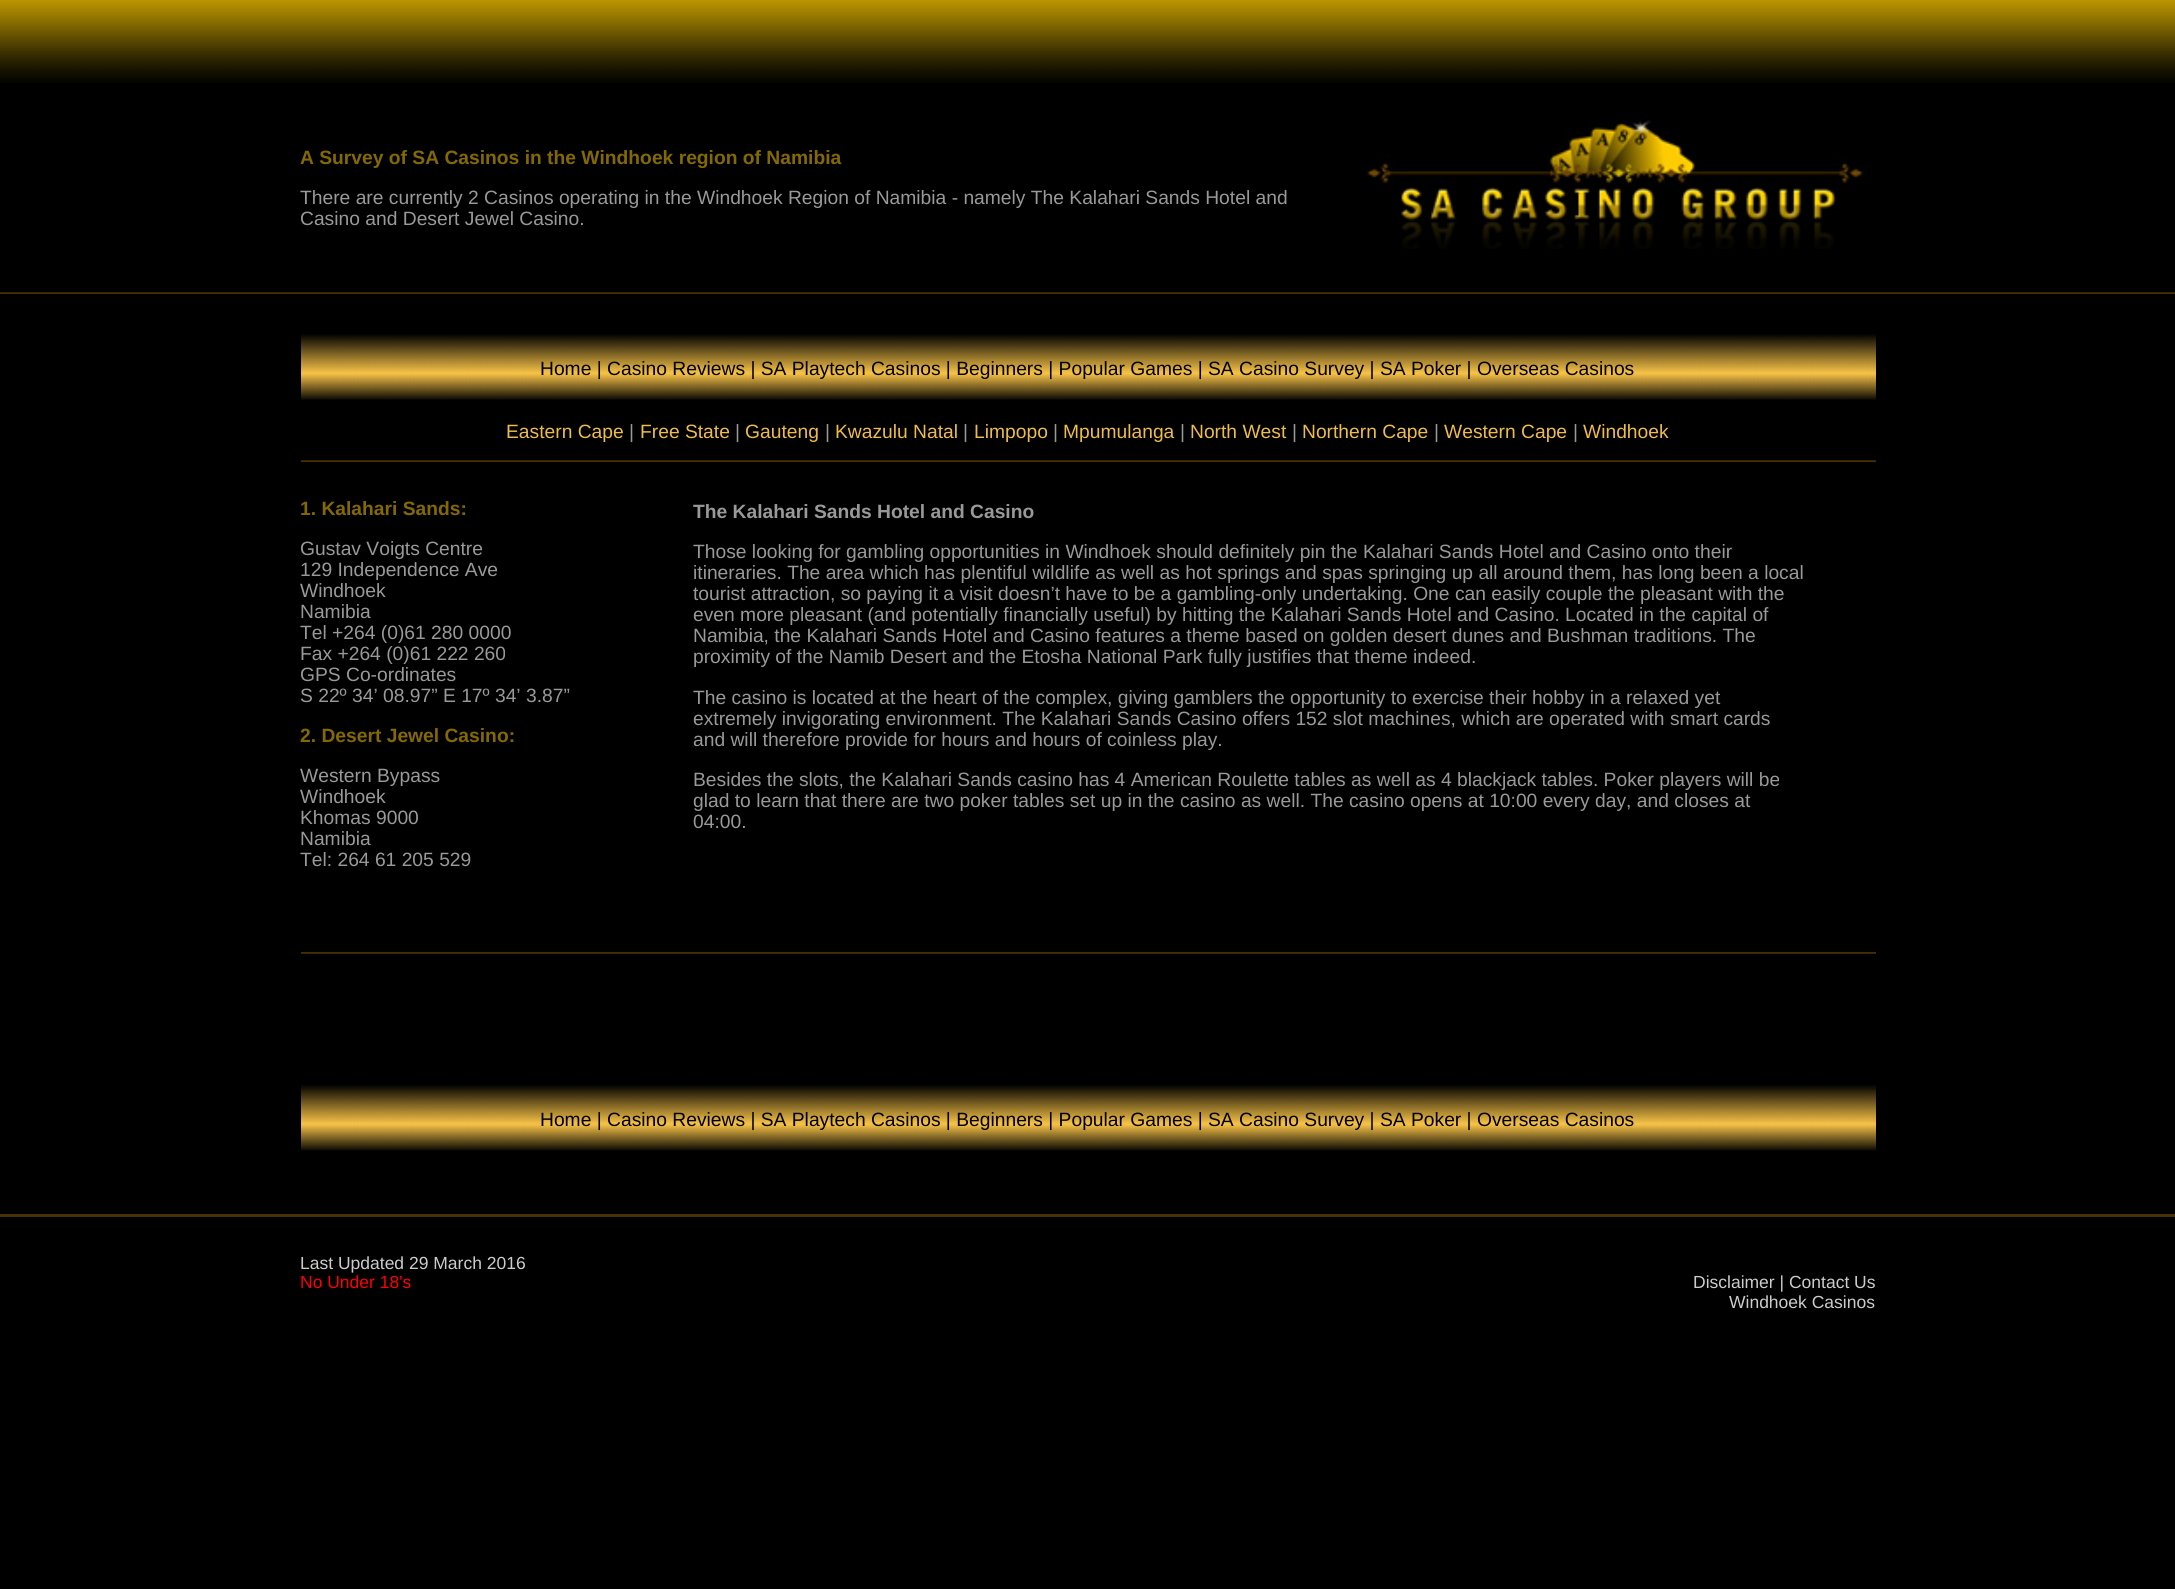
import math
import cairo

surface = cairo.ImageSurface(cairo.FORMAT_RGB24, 2175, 1589)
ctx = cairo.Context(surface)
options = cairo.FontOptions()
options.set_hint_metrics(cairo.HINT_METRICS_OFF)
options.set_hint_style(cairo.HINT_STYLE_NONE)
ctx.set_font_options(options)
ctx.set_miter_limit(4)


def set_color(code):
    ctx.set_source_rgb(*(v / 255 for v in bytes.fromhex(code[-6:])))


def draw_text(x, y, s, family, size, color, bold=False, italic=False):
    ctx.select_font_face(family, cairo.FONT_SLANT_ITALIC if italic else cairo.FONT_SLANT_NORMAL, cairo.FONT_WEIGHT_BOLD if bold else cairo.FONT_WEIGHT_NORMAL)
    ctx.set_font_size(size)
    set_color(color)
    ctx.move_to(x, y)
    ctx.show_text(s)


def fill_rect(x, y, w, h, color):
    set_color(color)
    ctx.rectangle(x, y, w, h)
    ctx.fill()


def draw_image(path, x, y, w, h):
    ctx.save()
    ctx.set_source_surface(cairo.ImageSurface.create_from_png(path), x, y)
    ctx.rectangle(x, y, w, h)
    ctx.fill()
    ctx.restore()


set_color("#000000")
ctx.paint()
draw_image("assets/img1.png", 0, 0, 2175, 83)
draw_text(300, 164, "A Survey of SA Casinos in the Windhoek region of Namibia", "Liberation Sans", 19.25, "#846900", bold=True)
draw_text(300, 204, "There are currently 2 Casinos operating in the Windhoek Region of Namibia - namely The Kalahari Sands Hotel and", "Liberation Sans", 19.25, "#999999")
draw_text(300, 225, "Casino and Desert Jewel Casino.", "Liberation Sans", 19.25, "#999999")
draw_image("assets/img2.png", 1367, 120, 502, 129)
draw_image("assets/img3.png", 0, 292, 2175, 2)
draw_image("assets/img4.png", 301, 334, 1575, 66)
draw_text(540, 375, "Home | Casino Reviews | SA Playtech Casinos | Beginners | Popular Games | SA Casino Survey | SA Poker | Overseas Casinos", "Liberation Sans", 19.25, "#000000")
draw_text(506, 438, "Eastern Cape", "Liberation Sans", 19.25, "#efbc47")
draw_text(629, 438, "|", "Liberation Sans", 19.25, "#999999")
draw_text(640, 438, "Free State", "Liberation Sans", 19.25, "#efbc47")
draw_text(735, 438, "|", "Liberation Sans", 19.25, "#999999")
draw_text(745, 438, "Gauteng", "Liberation Sans", 19.25, "#efbc47")
draw_text(825, 438, "|", "Liberation Sans", 19.25, "#999999")
draw_text(835, 438, "Kwazulu Natal", "Liberation Sans", 19.25, "#efbc47")
draw_text(963, 438, "|", "Liberation Sans", 19.25, "#999999")
draw_text(974, 438, "Limpopo", "Liberation Sans", 19.25, "#efbc47")
draw_text(1053, 438, "|", "Liberation Sans", 19.25, "#999999")
draw_text(1063, 438, "Mpumulanga", "Liberation Sans", 19.25, "#efbc47")
draw_text(1180, 438, "|", "Liberation Sans", 19.25, "#999999")
draw_text(1190, 438, "North West", "Liberation Sans", 19.25, "#efbc47")
draw_text(1292, 438, "|", "Liberation Sans", 19.25, "#999999")
draw_text(1302, 438, "Northern Cape", "Liberation Sans", 19.25, "#efbc47")
draw_text(1434, 438, "|", "Liberation Sans", 19.25, "#999999")
draw_text(1444, 438, "Western Cape", "Liberation Sans", 19.25, "#efbc47")
draw_text(1573, 438, "|", "Liberation Sans", 19.25, "#999999")
draw_text(1583, 438, "Windhoek", "Liberation Sans", 19.25, "#efbc47")
draw_image("assets/img5.png", 301, 460, 1575, 2)
draw_text(300, 515, "1. Kalahari Sands:", "Liberation Sans", 19.25, "#846900", bold=True)
draw_text(300, 555, "Gustav Voigts Centre", "Liberation Sans", 19.25, "#999999")
draw_text(300, 576, "129 Independence Ave", "Liberation Sans", 19.25, "#999999")
draw_text(300, 597, "Windhoek", "Liberation Sans", 19.25, "#999999")
draw_text(300, 618, "Namibia", "Liberation Sans", 19.25, "#999999")
draw_text(300, 639, "Tel +264 (0)61 280 0000", "Liberation Sans", 19.25, "#999999")
draw_text(300, 660, "Fax +264 (0)61 222 260", "Liberation Sans", 19.25, "#999999")
draw_text(300, 681, "GPS Co-ordinates", "Liberation Sans", 19.25, "#999999")
draw_text(300, 702, "S 22º 34’ 08.97” E 17º 34’ 3.87”", "Liberation Sans", 19.25, "#999999")
draw_text(300, 742, "2. Desert Jewel Casino:", "Liberation Sans", 19.25, "#846900", bold=True)
draw_text(300, 782, "Western Bypass", "Liberation Sans", 19.25, "#999999")
draw_text(300, 803, "Windhoek", "Liberation Sans", 19.25, "#999999")
draw_text(300, 824, "Khomas 9000", "Liberation Sans", 19.25, "#999999")
draw_text(300, 845, "Namibia", "Liberation Sans", 19.25, "#999999")
draw_text(300, 866, "Tel: 264 61 205 529", "Liberation Sans", 19.25, "#999999")
draw_text(693, 518, "The Kalahari Sands Hotel and Casino", "Liberation Sans", 19.25, "#999999", bold=True)
draw_text(693, 558, "Those looking for gambling opportunities in Windhoek should definitely pin the Kalahari Sands Hotel and Casino onto their", "Liberation Sans", 19.25, "#999999")
draw_text(693, 579, "itineraries. The area which has plentiful wildlife as well as hot springs and spas springing up all around them, has long been a local", "Liberation Sans", 19.25, "#999999")
draw_text(693, 600, "tourist attraction, so paying it a visit doesn’t have to be a gambling-only undertaking. One can easily couple the pleasant with the", "Liberation Sans", 19.25, "#999999")
draw_text(693, 621, "even more pleasant (and potentially financially useful) by hitting the Kalahari Sands Hotel and Casino. Located in the capital of", "Liberation Sans", 19.25, "#999999")
draw_text(693, 642, "Namibia, the Kalahari Sands Hotel and Casino features a theme based on golden desert dunes and Bushman traditions. The", "Liberation Sans", 19.25, "#999999")
draw_text(693, 663, "proximity of the Namib Desert and the Etosha National Park fully justifies that theme indeed.", "Liberation Sans", 19.25, "#999999")
draw_text(693, 704, "The casino is located at the heart of the complex, giving gamblers the opportunity to exercise their hobby in a relaxed yet", "Liberation Sans", 19.25, "#999999")
draw_text(693, 725, "extremely invigorating environment. The Kalahari Sands Casino offers 152 slot machines, which are operated with smart cards", "Liberation Sans", 19.25, "#999999")
draw_text(693, 746, "and will therefore provide for hours and hours of coinless play.", "Liberation Sans", 19.25, "#999999")
draw_text(693, 786, "Besides the slots, the Kalahari Sands casino has 4 American Roulette tables as well as 4 blackjack tables. Poker players will be", "Liberation Sans", 19.25, "#999999")
draw_text(693, 807, "glad to learn that there are two poker tables set up in the casino as well. The casino opens at 10:00 every day, and closes at", "Liberation Sans", 19.25, "#999999")
draw_text(693, 828, "04:00.", "Liberation Sans", 19.25, "#999999")
draw_image("assets/img6.png", 301, 952, 1575, 2)
draw_image("assets/img7.png", 301, 1085, 1575, 66)
draw_text(540, 1126, "Home | Casino Reviews | SA Playtech Casinos | Beginners | Popular Games | SA Casino Survey | SA Poker | Overseas Casinos", "Liberation Sans", 19.25, "#000000")
fill_rect(0, 1214, 2175, 3, "#473102")
draw_text(300, 1269, "Last Updated 29 March 2016", "Liberation Sans", 17.5, "#cccccc")
draw_text(300, 1288, "No Under 18's", "Liberation Sans", 17.5, "#ff0000")
draw_text(1693, 1288, "Disclaimer | Contact Us", "Liberation Sans", 17.5, "#cccccc")
draw_text(1729, 1308, "Windhoek Casinos", "Liberation Sans", 17.5, "#cccccc")
surface.write_to_png("output.png")
